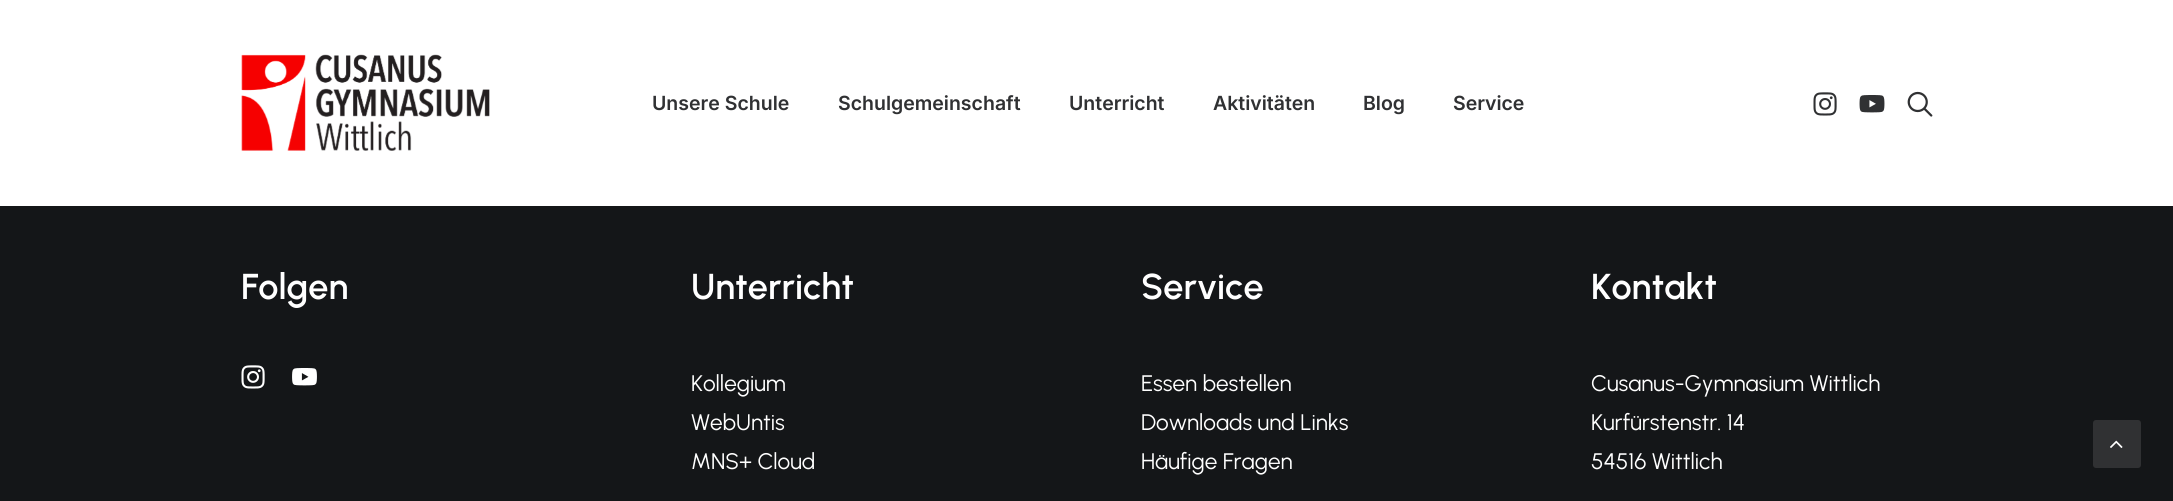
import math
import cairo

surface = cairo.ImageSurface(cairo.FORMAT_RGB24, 2173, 501)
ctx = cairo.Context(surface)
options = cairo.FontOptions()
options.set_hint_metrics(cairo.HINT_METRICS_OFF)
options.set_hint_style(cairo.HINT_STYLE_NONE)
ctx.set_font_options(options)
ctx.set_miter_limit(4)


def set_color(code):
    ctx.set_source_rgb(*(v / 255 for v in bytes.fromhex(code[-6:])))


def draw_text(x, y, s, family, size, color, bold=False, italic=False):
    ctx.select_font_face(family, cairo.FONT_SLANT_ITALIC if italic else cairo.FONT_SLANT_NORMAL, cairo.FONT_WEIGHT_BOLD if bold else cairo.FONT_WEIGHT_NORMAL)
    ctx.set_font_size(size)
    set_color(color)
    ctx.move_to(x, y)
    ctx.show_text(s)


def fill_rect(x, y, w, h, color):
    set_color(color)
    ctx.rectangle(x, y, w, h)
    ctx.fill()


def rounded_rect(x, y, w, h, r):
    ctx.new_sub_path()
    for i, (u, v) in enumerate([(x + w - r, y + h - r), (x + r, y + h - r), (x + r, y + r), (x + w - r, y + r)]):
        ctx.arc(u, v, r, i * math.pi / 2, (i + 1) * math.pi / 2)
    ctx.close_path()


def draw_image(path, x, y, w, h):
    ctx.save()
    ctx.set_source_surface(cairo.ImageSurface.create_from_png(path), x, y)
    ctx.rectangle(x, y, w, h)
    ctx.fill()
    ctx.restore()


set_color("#141618")
ctx.paint()
fill_rect(0, 0, 2173, 206, "#ffffff")
draw_image("assets/img1.png", 241, 54, 249, 97)
draw_text(652, 110, "Unsere Schule", "Inter SemiBold", 19.5, "#303133")
draw_text(838, 110, "Schulgemeinschaft", "Inter SemiBold", 19.5, "#303133")
draw_text(1069, 110, "Unterricht", "Inter SemiBold", 19.5, "#303133")
draw_text(1213, 110, "Aktivitäten", "Inter SemiBold", 19.5, "#303133")
draw_text(1363, 110, "Blog", "Inter SemiBold", 19.5, "#303133")
draw_text(1453, 110, "Service", "Inter SemiBold", 19.5, "#303133")
draw_image("assets/img2.png", 1813, 92, 24, 24)
draw_image("assets/img3.png", 1859, 95, 26, 18)
draw_image("assets/img4.png", 1907, 91, 26, 26)
draw_text(241, 299, "Folgen", "Urbanist SemiBold", 36, "#ffffff")
draw_image("assets/img5.png", 241, 365, 24, 24)
draw_image("assets/img6.png", 292, 368, 25, 18)
draw_text(691, 299, "Unterricht", "Urbanist SemiBold", 36, "#ffffff")
draw_text(691, 391, "Kollegium", "Urbanist", 22.5, "#ffffff")
draw_text(691, 430, "WebUntis", "Urbanist", 22.5, "#ffffff")
draw_text(691, 469, "MNS+ Cloud", "Urbanist", 22.5, "#ffffff")
draw_text(1141, 299, "Service", "Urbanist SemiBold", 36, "#ffffff")
draw_text(1141, 391, "Essen bestellen", "Urbanist", 22.5, "#ffffff")
draw_text(1141, 430, "Downloads und Links", "Urbanist", 22.5, "#ffffff")
draw_text(1141, 469, "Häufige Fragen", "Urbanist", 22.5, "#ffffff")
draw_text(1591, 299, "Kontakt", "Urbanist SemiBold", 36, "#ffffff")
draw_text(1591, 391, "Cusanus-Gymnasium Wittlich", "Urbanist", 22.5, "#ffffff")
draw_text(1591, 430, "Kurfürstenstr. 14", "Urbanist", 22.5, "#ffffff")
draw_text(1591, 469, "54516 Wittlich", "Urbanist", 22.5, "#ffffff")
set_color("#303133")
rounded_rect(2094, 421, 46, 46, 2)
ctx.fill_preserve()
ctx.stroke()
draw_image("assets/img7.png", 2110, 440, 13, 8)
surface.write_to_png("output.png")
